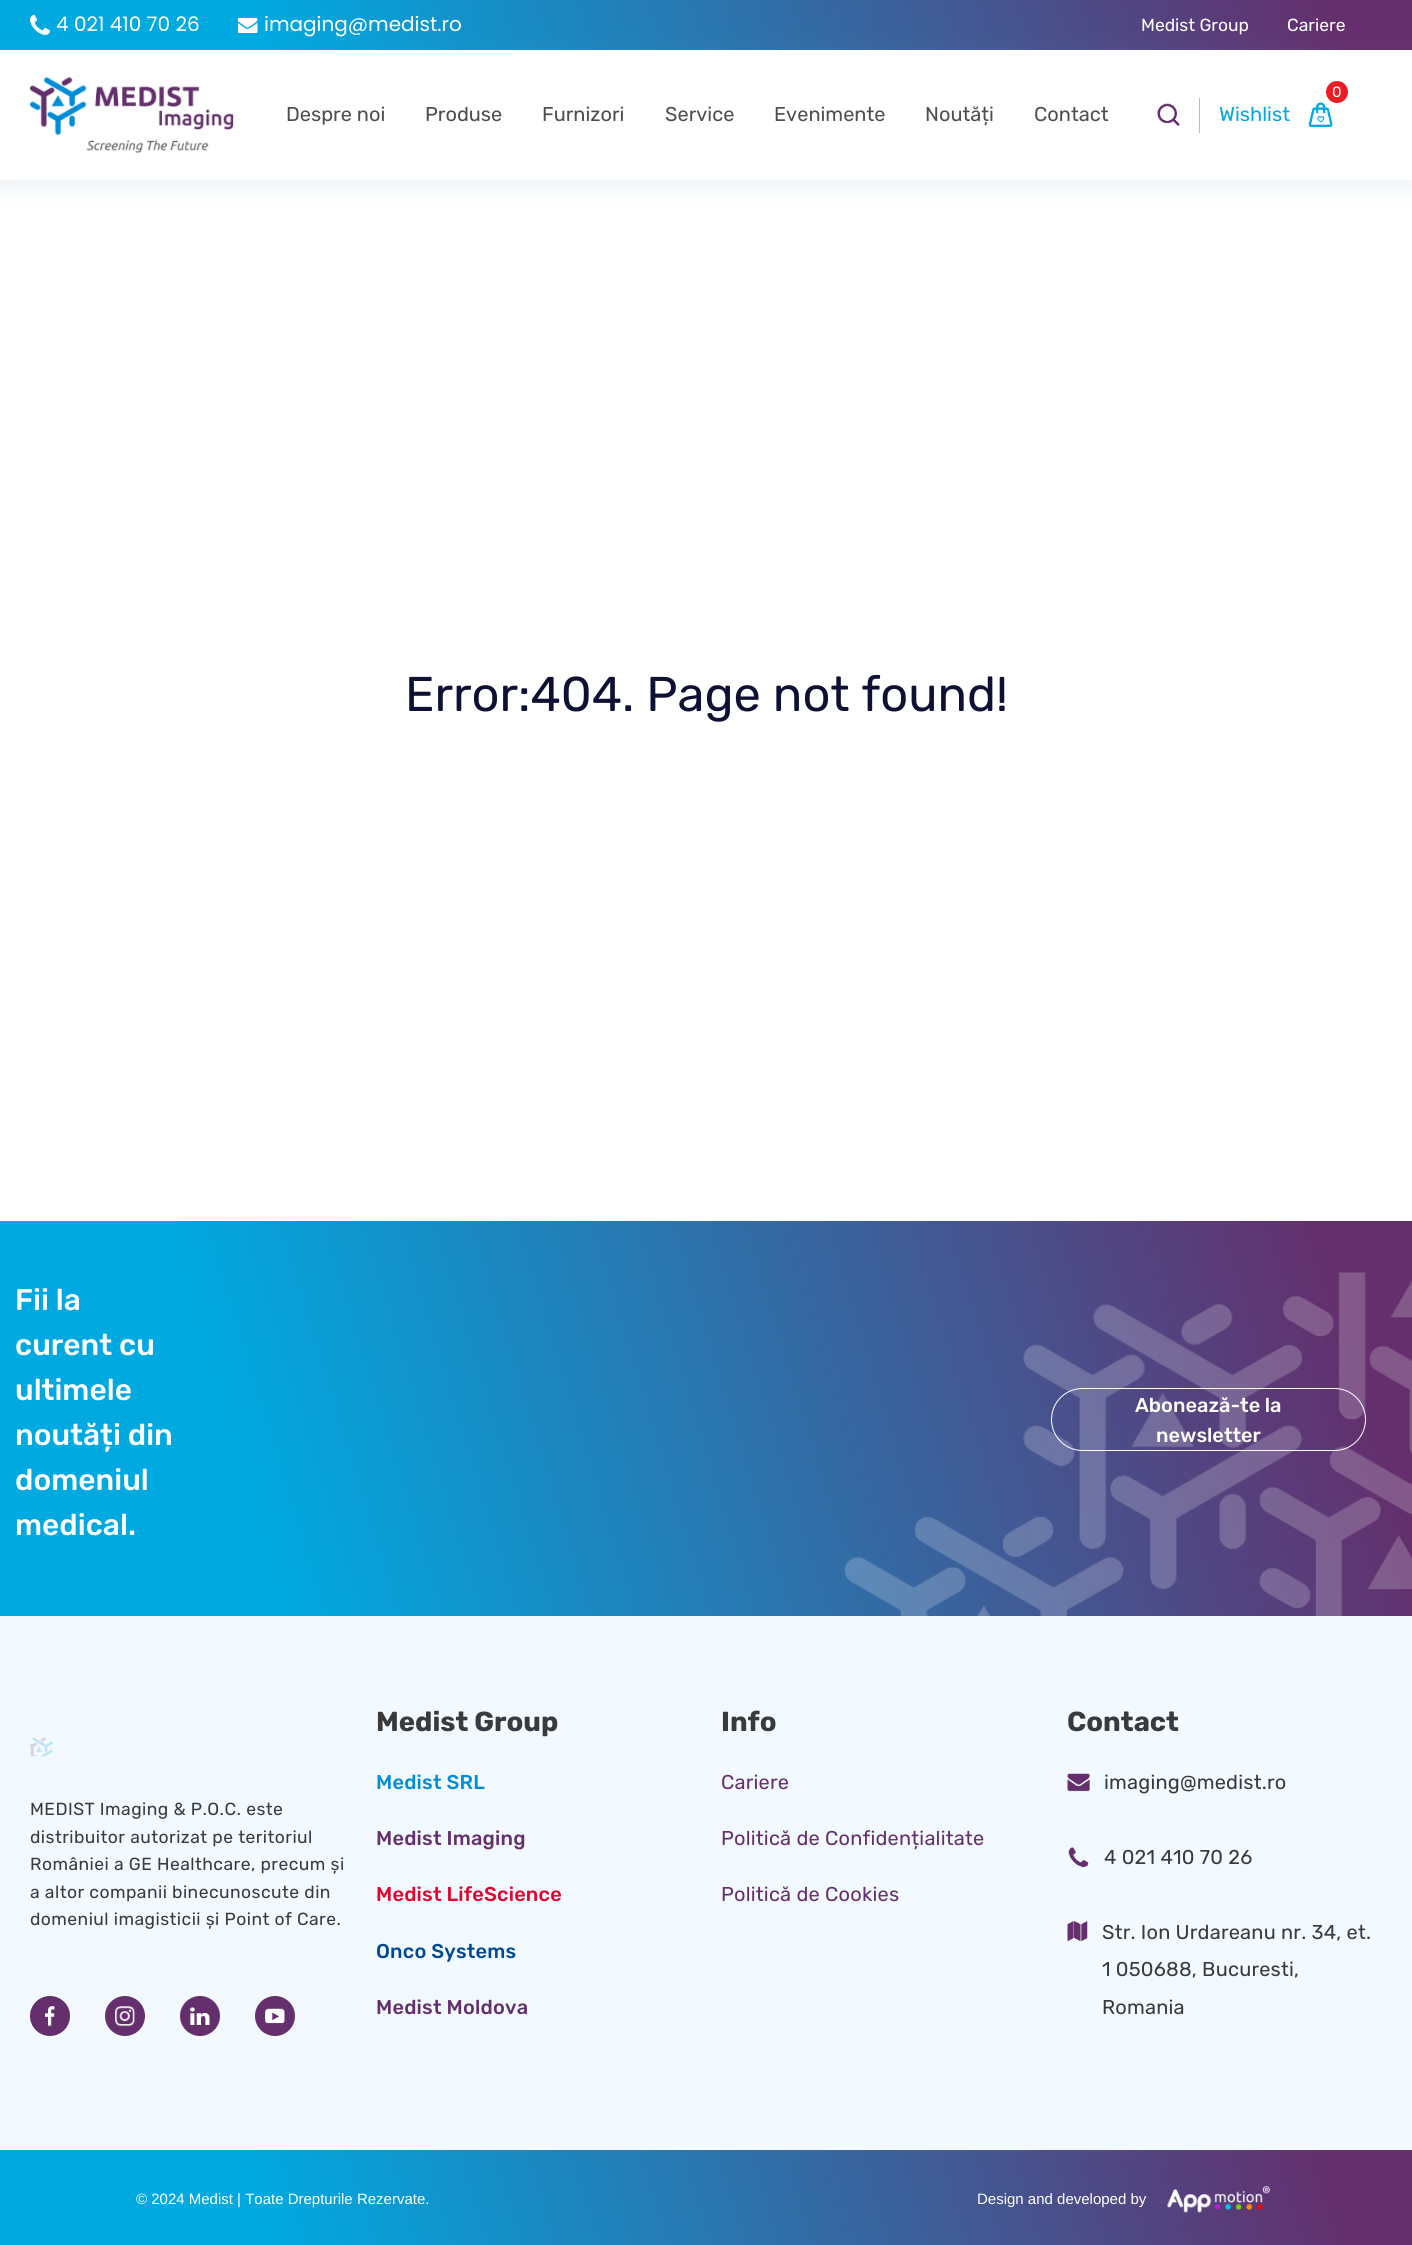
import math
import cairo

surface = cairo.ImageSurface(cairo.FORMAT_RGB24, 1412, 2245)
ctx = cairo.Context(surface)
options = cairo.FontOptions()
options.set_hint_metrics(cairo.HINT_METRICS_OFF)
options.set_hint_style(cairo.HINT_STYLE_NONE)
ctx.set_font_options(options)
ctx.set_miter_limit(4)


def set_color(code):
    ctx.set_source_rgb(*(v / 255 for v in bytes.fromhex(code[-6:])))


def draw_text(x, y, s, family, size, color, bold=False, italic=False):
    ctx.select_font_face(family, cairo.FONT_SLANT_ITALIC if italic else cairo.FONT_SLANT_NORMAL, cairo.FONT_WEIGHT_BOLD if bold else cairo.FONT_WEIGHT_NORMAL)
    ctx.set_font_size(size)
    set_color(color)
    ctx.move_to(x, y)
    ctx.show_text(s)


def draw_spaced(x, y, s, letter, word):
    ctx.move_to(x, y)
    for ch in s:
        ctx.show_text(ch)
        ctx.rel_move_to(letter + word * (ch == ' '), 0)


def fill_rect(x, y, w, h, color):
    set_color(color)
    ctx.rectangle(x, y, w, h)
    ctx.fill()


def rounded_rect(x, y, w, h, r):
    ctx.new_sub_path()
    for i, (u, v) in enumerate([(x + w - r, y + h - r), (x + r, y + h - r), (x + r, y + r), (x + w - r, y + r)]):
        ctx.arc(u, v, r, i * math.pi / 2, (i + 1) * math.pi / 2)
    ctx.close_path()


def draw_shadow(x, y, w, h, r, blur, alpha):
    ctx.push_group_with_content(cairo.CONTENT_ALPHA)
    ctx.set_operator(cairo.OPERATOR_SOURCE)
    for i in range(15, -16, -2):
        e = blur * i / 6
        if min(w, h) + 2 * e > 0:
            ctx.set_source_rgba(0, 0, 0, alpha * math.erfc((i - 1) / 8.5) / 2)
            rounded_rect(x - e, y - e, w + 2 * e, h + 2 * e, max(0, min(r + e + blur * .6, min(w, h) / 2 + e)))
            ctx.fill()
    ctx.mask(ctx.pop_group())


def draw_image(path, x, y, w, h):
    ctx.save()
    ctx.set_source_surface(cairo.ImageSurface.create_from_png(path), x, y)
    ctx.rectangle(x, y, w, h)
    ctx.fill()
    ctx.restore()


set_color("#ffffff")
ctx.paint()
gradient = cairo.LinearGradient(53, 225, 1359, -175)
gradient.add_color_stop_rgba(0.19, 0, 0.663, 0.878, 1)
gradient.add_color_stop_rgba(0.94, 0.392, 0.184, 0.424, 1)
ctx.set_source(gradient)
ctx.rectangle(0, 0, 1412, 50)
ctx.fill()
draw_image("assets/img1.png", 30, 15, 20, 20)
draw_text(56, 31, "4 021 410 70 26", "Poppins", 20, "#ffffff")
draw_image("assets/img2.png", 238, 18, 20, 15)
draw_text(264, 31, "imaging@medist.ro", "Poppins", 20, "#ffffff")
ctx.save()
ctx.set_fill_rule(cairo.FILL_RULE_EVEN_ODD)
ctx.new_path()
ctx.move_to(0, 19)
ctx.line_to(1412, 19)
ctx.line_to(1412, 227)
ctx.line_to(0, 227)
ctx.close_path()
ctx.move_to(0, 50)
ctx.line_to(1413, 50)
ctx.line_to(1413, 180)
ctx.line_to(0, 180)
ctx.close_path()
ctx.clip()
set_color("#89aabd")
draw_shadow(0, 58, 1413, 130, 0, 12.5, 0.16)
ctx.restore()
draw_text(1141, 31, "Medist Group", "Rubik Light", 17.5, "#ffffff")
draw_text(1287, 31, "Cariere", "Rubik Light", 17.5, "#ffffff")
draw_image("assets/img3.png", 30, 77, 204, 76)
draw_text(286, 121, "Despre noi", "Rubik Light", 20, "#4d4e50")
draw_text(425, 121, "Produse", "Rubik Light", 20, "#4d4e50")
draw_text(542, 121, "Furnizori", "Rubik Light", 20, "#4d4e50")
draw_text(665, 121, "Service", "Rubik Light", 20, "#4d4e50")
draw_text(774, 121, "Evenimente", "Rubik Light", 20, "#4d4e50")
draw_text(925, 121, "Noutăți", "Rubik Light", 20, "#4d4e50")
draw_text(1034, 121, "Contact", "Rubik Light", 20, "#4d4e50")
fill_rect(1199, 98, 1, 35, "#abbfd4")
draw_image("assets/img4.png", 1157, 103, 23, 23)
draw_image("assets/img5.png", 1308, 102, 25, 25)
set_color("#ed1c24")
ctx.arc(1337, 92, 11, 0, 2 * math.pi)
ctx.fill()
draw_text(1332, 97, "0", "Rubik Light", 15, "#ffffff")
draw_text(1219, 121, "Wishlist", "Rubik Light", 20, "#00a9e0")
draw_text(405, 711, "Error:404. Page not found!", "Rubik Light", 48.75, "#0e1133")
gradient = cairo.LinearGradient(5.2, 1633, 1407, 1204)
gradient.add_color_stop_rgba(0.19, 0, 0.663, 0.878, 1)
gradient.add_color_stop_rgba(0.94, 0.392, 0.184, 0.424, 1)
ctx.set_source(gradient)
ctx.rectangle(0, 1221, 1412, 395)
ctx.fill()
draw_image("assets/img6.png", 844, 1272, 568, 344)
draw_text(15, 1310, "Fii la", "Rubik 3 Light", 30, "#ffffff")
draw_text(15, 1355, "curent cu", "Rubik 3 Light", 30, "#ffffff")
draw_text(15, 1400, "ultimele", "Rubik 3 Light", 30, "#ffffff")
draw_text(15, 1445, "noutăți din", "Rubik 3 Light", 30, "#ffffff")
draw_text(15, 1490, "domeniul", "Rubik 3 Light", 30, "#ffffff")
draw_text(15, 1535, "medical.", "Rubik 3 Light", 30, "#ffffff")
rounded_rect(1051.5, 1388.5, 314, 62, 31)
ctx.set_line_width(1)
ctx.stroke()
draw_text(1135, 1412, "Abonează-te la", "Rubik 3 Light", 20, "#ffffff")
draw_text(1156, 1442, "newsletter", "Rubik 3 Light", 20, "#ffffff")
fill_rect(0, 1616, 1412, 534, "#f2faff")
draw_image("assets/img7.png", 30, 1737, 23, 20)
ctx.select_font_face("Rubik Light")
ctx.set_font_size(17.5)
set_color("#393a3b")
draw_spaced(30, 1815, "MEDIST Imaging & P.O.C. este", 0.45, 0)
draw_spaced(30, 1843, "distribuitor autorizat pe teritoriul", 0.45, 0)
draw_spaced(30, 1870, "României a GE Healthcare, precum și", 0.45, 0)
draw_spaced(30, 1898, "a altor companii binecunoscute din", 0.45, 0)
draw_spaced(30, 1925, "domeniul imagisticii și Point of Care.", 0.45, 0)
set_color("#642f6c")
ctx.new_path()
ctx.arc(50, 2016, 20, 0, 2 * math.pi)
ctx.fill()
draw_image("assets/img8.png", 45, 2006, 10, 21)
ctx.arc(125, 2016, 20, 0, 2 * math.pi)
ctx.fill()
draw_image("assets/img9.png", 115, 2006, 20, 21)
ctx.arc(200, 2016, 20, 0, 2 * math.pi)
ctx.fill()
draw_image("assets/img10.png", 190, 2007, 20, 18)
ctx.arc(275, 2016, 20, 0, 2 * math.pi)
ctx.fill()
draw_image("assets/img11.png", 265, 2008, 20, 16)
draw_text(376, 1731, "Medist Group", "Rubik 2 Light", 27.5, "#393a3b")
ctx.select_font_face("Rubik 3 Light")
ctx.set_font_size(20)
set_color("#008dd8")
draw_spaced(376, 1789, "Medist SRL", 0.2, 0)
set_color("#642f6c")
draw_spaced(376, 1845, "Medist Imaging", 0.2, 0)
set_color("#e4002b")
draw_spaced(376, 1901, "Medist LifeScience", 0.2, 0)
set_color("#004893")
draw_spaced(376, 1958, "Onco Systems", 0.2, 0)
set_color("#642f6c")
draw_spaced(376, 2014, "Medist Moldova", 0.2, 0)
draw_text(721, 1731, "Info", "Rubik 2 Light", 27.5, "#393a3b")
ctx.select_font_face("Rubik Light")
ctx.set_font_size(20)
set_color("#642f6c")
draw_spaced(721, 1789, "Cariere", 0.2, 0)
draw_spaced(721, 1845, "Politică de Confidențialitate", 0.2, 0)
draw_spaced(721, 1901, "Politică de Cookies", 0.2, 0)
draw_text(1067, 1731, "Contact", "Rubik 2 Light", 27.5, "#393a3b")
draw_image("assets/img12.png", 1067, 1773, 23, 19)
ctx.select_font_face("Rubik Light")
ctx.set_font_size(20)
draw_spaced(1104, 1789, "imaging@medist.ro", 0.2, 0)
draw_image("assets/img13.png", 1068, 1847, 21, 21)
draw_spaced(1104, 1864, "4 021 410 70 26", 0.2, 0)
draw_image("assets/img14.png", 1067, 1921, 21, 21)
draw_spaced(1102, 1939, "Str. Ion Urdareanu nr. 34, et.", 0.2, 0)
draw_spaced(1102, 1976, "1 050688, Bucuresti,", 0.2, 0)
draw_spaced(1102, 2014, "Romania", 0.2, 0)
gradient = cairo.LinearGradient(47, 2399, 1365, 1996)
gradient.add_color_stop_rgba(0.19, 0, 0.663, 0.878, 1)
gradient.add_color_stop_rgba(0.94, 0.392, 0.184, 0.424, 1)
ctx.set_source(gradient)
ctx.rectangle(0, 2153, 1412, 92)
ctx.fill()
gradient = cairo.LinearGradient(47, 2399, 1365, 1996)
gradient.add_color_stop_rgba(0.19, 0.027, 0.651, 0.851, 1)
gradient.add_color_stop_rgba(0.94, 0.396, 0.2, 0.424, 1)
ctx.set_source(gradient)
ctx.rectangle(0, 2150, 1412, 3)
ctx.fill()
draw_text(136, 2204, "© 2024 Medist | Toate Drepturile Rezervate.", "Liberation Sans", 15, "#ffffff")
draw_text(977, 2204, "Design and developed by", "Liberation Sans", 15, "#ffffff")
draw_image("assets/img15.png", 1167, 2186, 103, 27)
surface.write_to_png("output.png")
